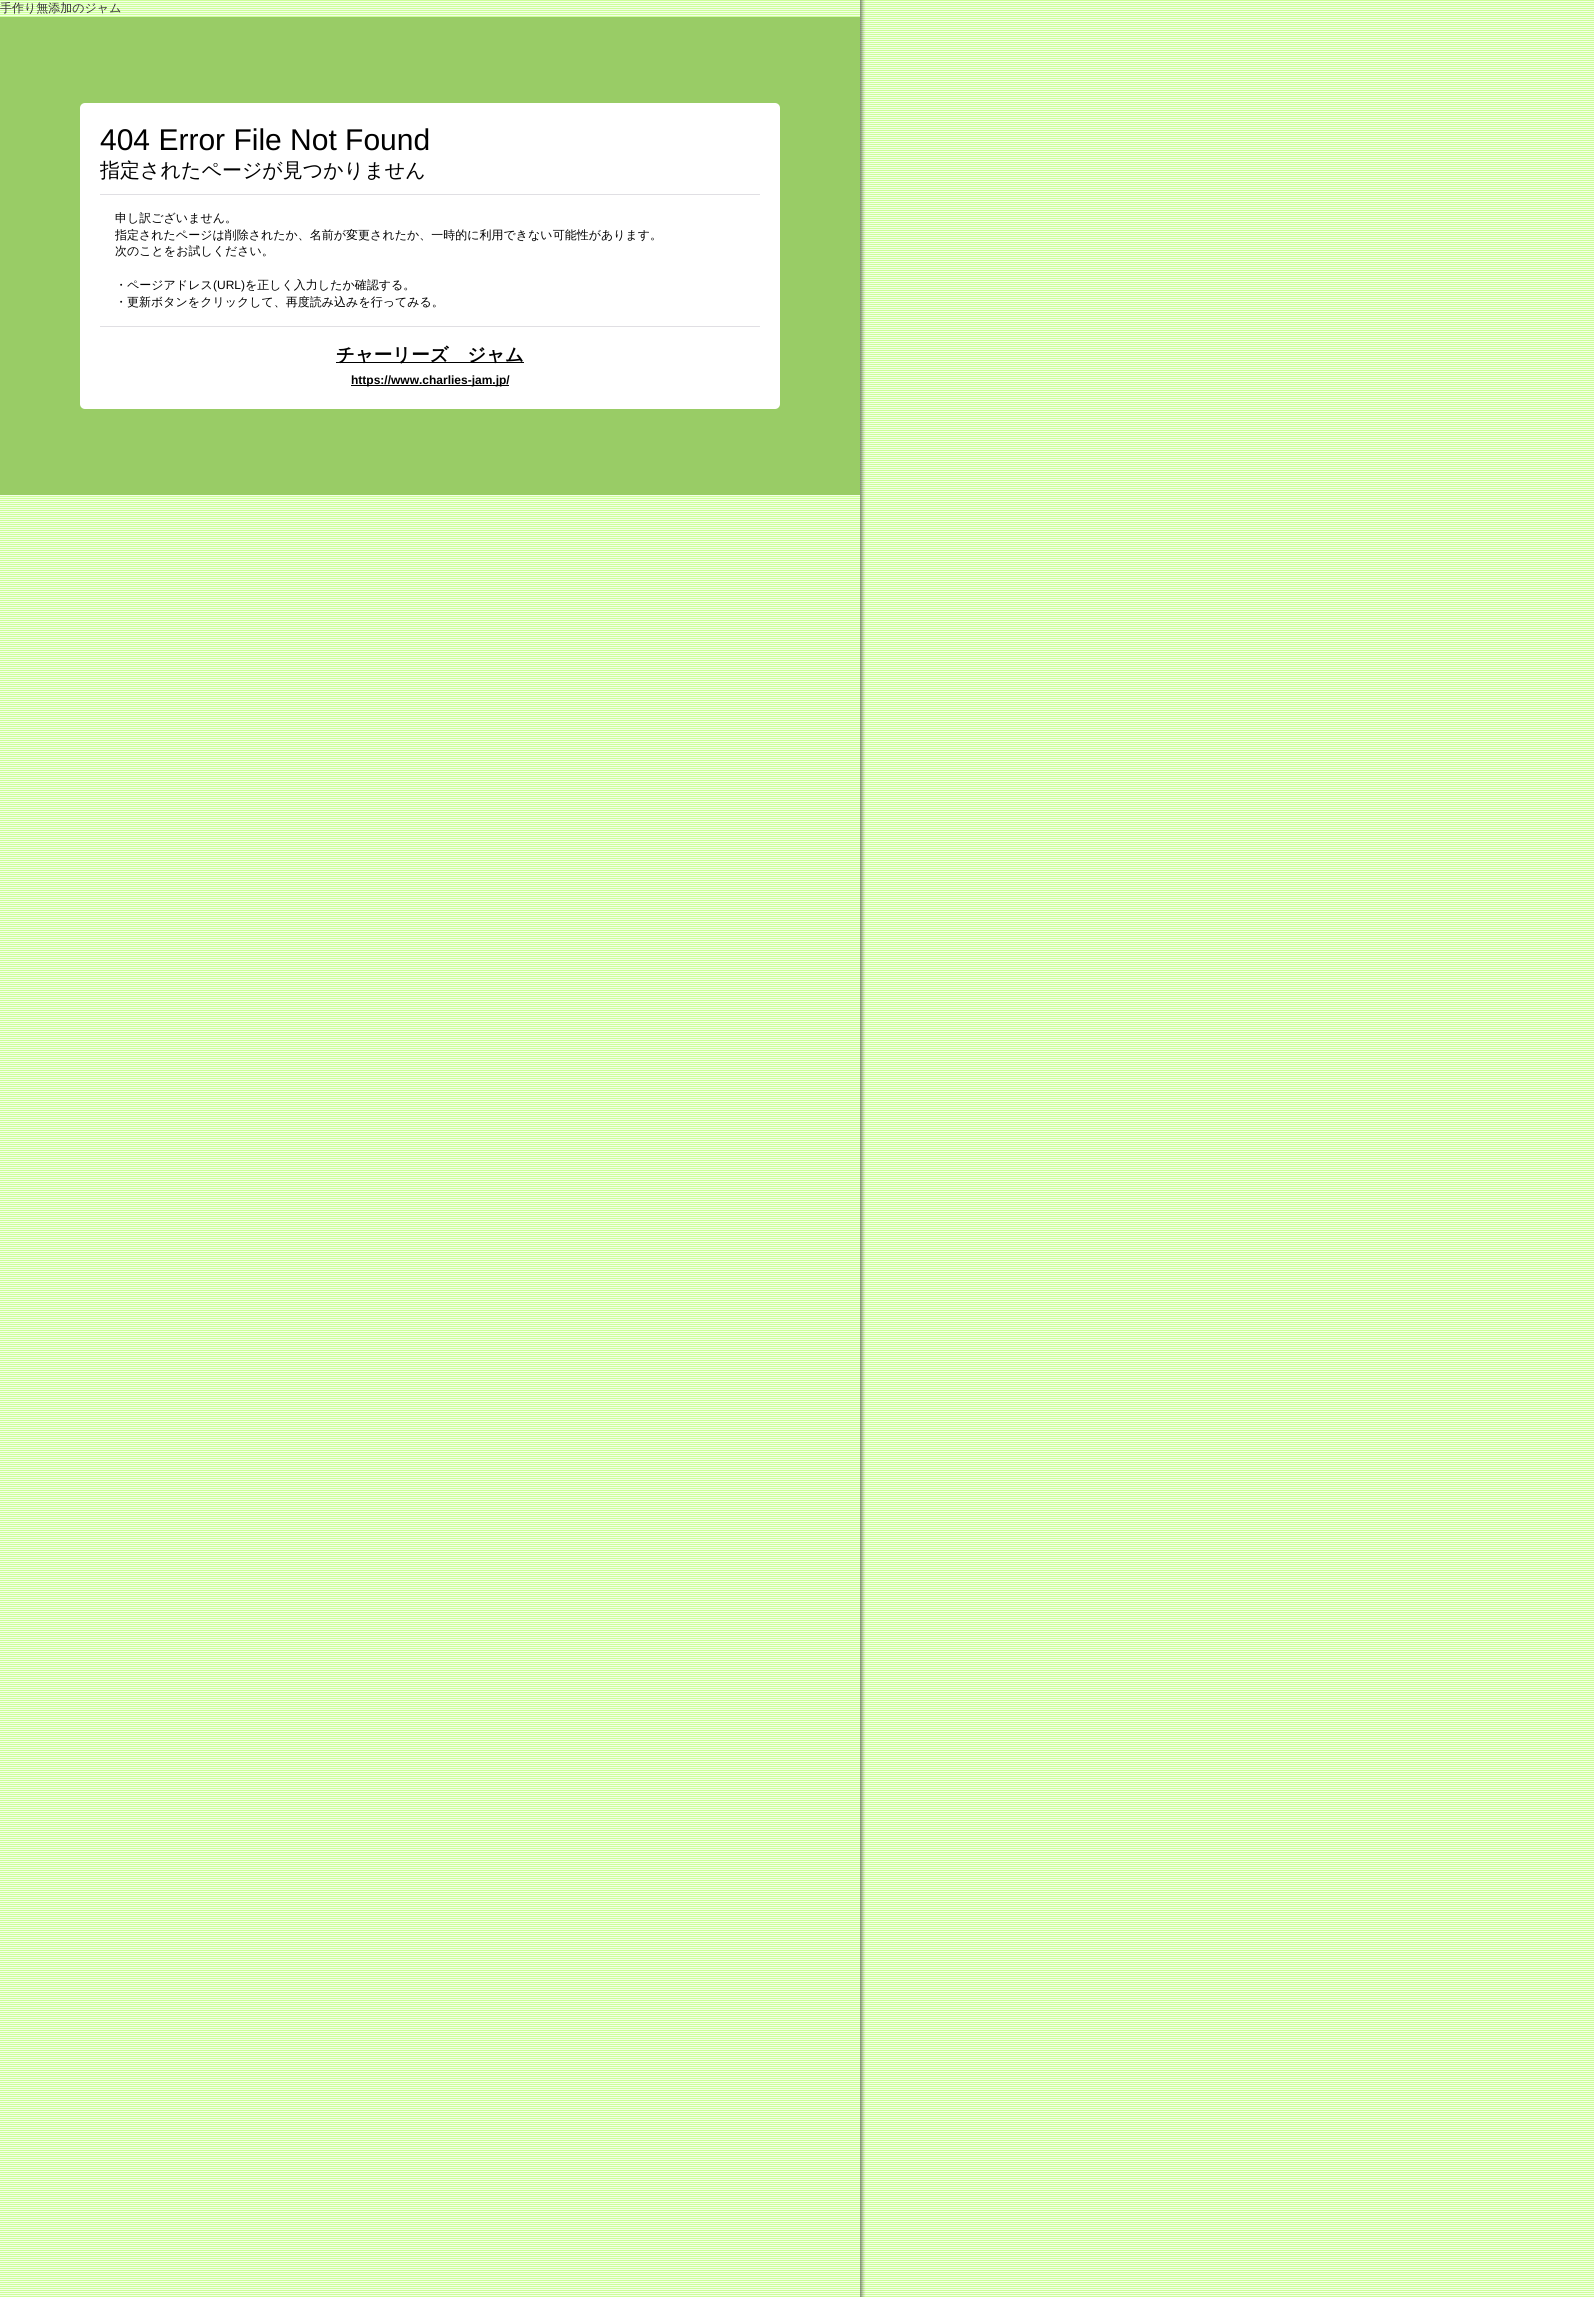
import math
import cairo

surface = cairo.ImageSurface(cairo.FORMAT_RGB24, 1594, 2297)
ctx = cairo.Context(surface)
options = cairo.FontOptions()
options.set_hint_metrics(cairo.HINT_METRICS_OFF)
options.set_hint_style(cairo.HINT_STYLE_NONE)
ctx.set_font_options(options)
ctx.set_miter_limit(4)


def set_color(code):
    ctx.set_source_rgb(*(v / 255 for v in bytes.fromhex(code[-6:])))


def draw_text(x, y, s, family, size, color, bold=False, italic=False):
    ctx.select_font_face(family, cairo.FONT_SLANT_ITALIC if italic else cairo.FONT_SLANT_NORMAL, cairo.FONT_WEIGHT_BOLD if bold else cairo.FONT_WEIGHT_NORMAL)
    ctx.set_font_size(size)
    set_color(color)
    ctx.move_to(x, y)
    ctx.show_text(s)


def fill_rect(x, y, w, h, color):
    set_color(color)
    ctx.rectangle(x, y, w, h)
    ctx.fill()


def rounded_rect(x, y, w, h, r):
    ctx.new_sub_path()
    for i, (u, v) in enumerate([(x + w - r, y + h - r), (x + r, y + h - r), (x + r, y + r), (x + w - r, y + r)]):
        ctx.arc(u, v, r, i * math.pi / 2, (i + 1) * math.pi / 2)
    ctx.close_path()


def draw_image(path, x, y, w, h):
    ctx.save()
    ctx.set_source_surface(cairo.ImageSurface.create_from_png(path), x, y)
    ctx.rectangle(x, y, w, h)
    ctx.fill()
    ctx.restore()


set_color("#ffffff")
ctx.paint()
draw_image("assets/img1.png", 0, 0, 1594, 2297)
draw_text(0, 12, "手作り無添加のジャム", "WenQuanYi Zen Hei Medium", 12, "#333333")
fill_rect(0, 17, 860, 478, "#99cc66")
set_color("#ffffff")
rounded_rect(80, 103, 700, 306, 5)
ctx.fill()
draw_text(100, 150, "404 Error File Not Found", "Liberation Sans", 30, "#000000")
draw_text(100, 177, "指定されたページが見つかりません", "WenQuanYi Zen Hei Medium", 20, "#000000")
fill_rect(100, 194, 660, 1, "#e0dfe3")
fill_rect(100, 326, 660, 1, "#e0dfe3")
draw_text(115, 222, "申し訳ございません。", "WenQuanYi Zen Hei Medium", 12, "#000000")
draw_text(115, 239, "指定されたページは削除されたか、名前が変更されたか、一時的に利用できない可能性があります。", "WenQuanYi Zen Hei Medium", 12, "#000000")
draw_text(115, 255, "次のことをお試しください。", "WenQuanYi Zen Hei Medium", 12, "#000000")
draw_text(115, 289, "・ページアドレス", "WenQuanYi Zen Hei Medium", 12, "#000000")
draw_text(213, 289, "(URL)", "Liberation Sans", 12, "#000000")
draw_text(245, 289, "を正しく入力したか確認する。", "WenQuanYi Zen Hei Medium", 12, "#000000")
draw_text(115, 306, "・更新ボタンをクリックして、再度読み込みを行ってみる。", "WenQuanYi Zen Hei Medium", 12, "#000000")
fill_rect(336, 362, 188, 1, "#000000")
draw_text(336, 361, "チャーリーズ　ジャム", "WenQuanYi Zen Hei", 18.5, "#000000", bold=True)
fill_rect(351, 385, 158, 1, "#000000")
draw_text(351, 384, "https://www.charlies-jam.jp/", "Liberation Sans", 12, "#000000", bold=True)
surface.write_to_png("output.png")
